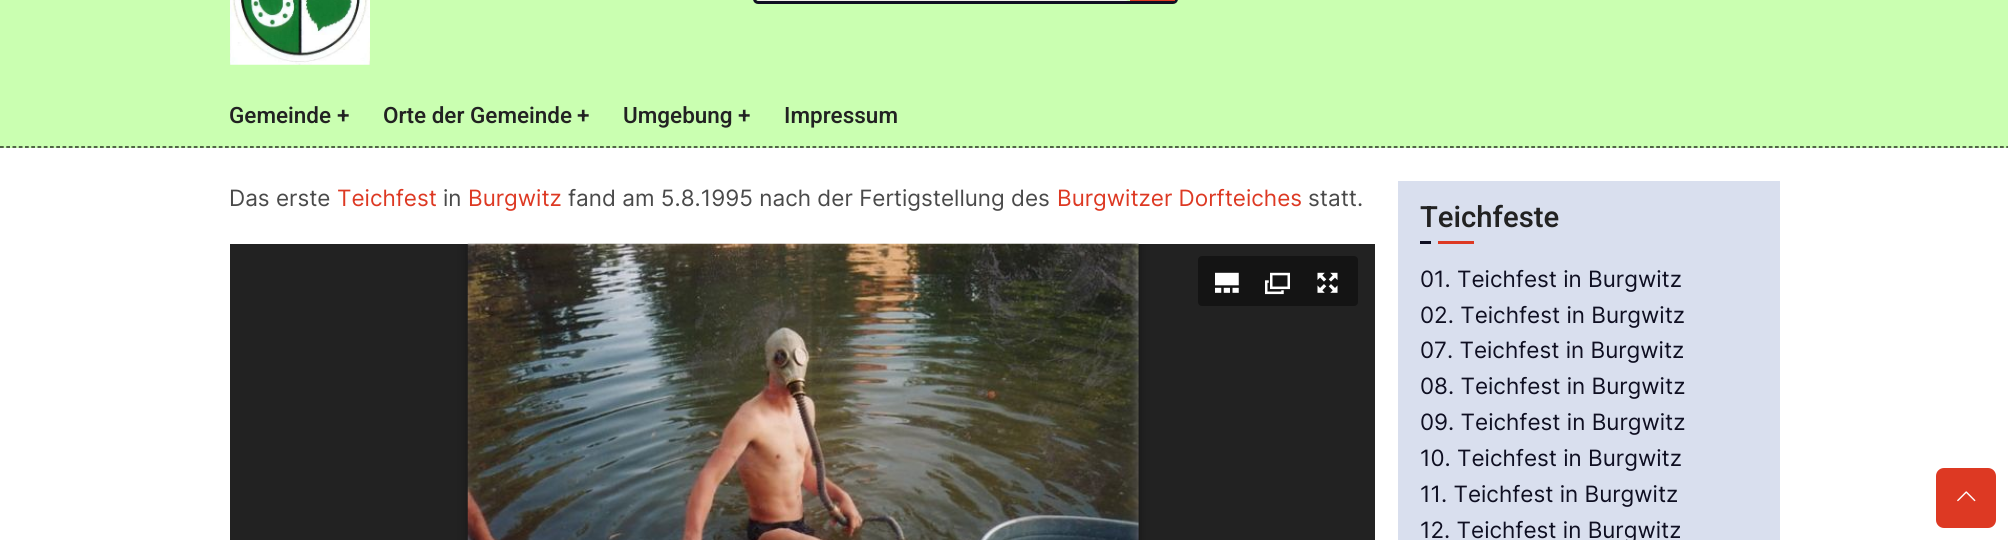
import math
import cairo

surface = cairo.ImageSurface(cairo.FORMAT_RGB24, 2008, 540)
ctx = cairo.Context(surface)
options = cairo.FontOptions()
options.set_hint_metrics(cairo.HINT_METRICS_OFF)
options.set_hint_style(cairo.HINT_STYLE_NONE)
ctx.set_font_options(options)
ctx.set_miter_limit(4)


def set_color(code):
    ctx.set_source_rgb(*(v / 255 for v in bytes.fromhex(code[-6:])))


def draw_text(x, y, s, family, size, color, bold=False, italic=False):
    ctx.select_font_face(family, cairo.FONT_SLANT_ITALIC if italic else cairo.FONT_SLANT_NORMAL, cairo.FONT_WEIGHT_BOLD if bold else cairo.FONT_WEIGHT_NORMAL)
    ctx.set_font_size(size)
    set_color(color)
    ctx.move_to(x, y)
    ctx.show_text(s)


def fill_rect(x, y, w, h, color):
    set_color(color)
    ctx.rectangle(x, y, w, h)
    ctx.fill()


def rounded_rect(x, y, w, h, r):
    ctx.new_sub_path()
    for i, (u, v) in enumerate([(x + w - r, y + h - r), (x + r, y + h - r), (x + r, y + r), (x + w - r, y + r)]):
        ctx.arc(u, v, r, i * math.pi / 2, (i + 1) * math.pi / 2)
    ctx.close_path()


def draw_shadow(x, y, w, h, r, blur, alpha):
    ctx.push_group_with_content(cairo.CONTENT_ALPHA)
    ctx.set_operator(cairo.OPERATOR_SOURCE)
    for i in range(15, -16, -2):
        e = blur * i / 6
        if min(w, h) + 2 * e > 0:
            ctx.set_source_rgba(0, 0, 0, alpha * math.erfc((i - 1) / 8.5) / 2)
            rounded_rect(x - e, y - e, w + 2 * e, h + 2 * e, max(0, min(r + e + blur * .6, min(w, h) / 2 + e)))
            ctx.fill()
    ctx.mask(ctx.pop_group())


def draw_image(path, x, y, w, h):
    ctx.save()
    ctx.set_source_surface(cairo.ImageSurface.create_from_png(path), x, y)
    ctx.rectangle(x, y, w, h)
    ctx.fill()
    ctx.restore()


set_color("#ffffff")
ctx.paint()
fill_rect(0, 0, 2008, 148, "#caffb1")
ctx.new_path()
ctx.move_to(0, 147)
ctx.line_to(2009, 147)
set_color("#000000")
ctx.set_line_width(1.2)
ctx.set_dash([3.75, 2.5])
ctx.stroke()
rounded_rect(754.5, -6.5, 422, 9, 3.5)
set_color("#0f0f22")
ctx.set_line_width(3)
ctx.set_dash([])
ctx.stroke()
set_color("#f4efec")
rounded_rect(755, -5, 375, 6, 5)
ctx.fill()
ctx.rectangle(1132, -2, 41, 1)
set_color("#dd3923")
ctx.set_line_width(4)
ctx.stroke()
draw_image("assets/img1.png", 230, 0, 140, 65)
draw_text(229, 123, "Gemeinde", "Heebo Medium", 22.5, "#222222")
draw_text(337, 123, "+", "Heebo Medium", 22.5, "#222222")
draw_text(383, 123, "Orte der Gemeinde", "Heebo Medium", 22.5, "#222222")
draw_text(577, 123, "+", "Heebo Medium", 22.5, "#222222")
draw_text(623, 123, "Umgebung", "Heebo Medium", 22.5, "#222222")
draw_text(738, 123, "+", "Heebo Medium", 22.5, "#222222")
draw_text(784, 123, "Impressum", "Heebo Medium", 22.5, "#222222")
draw_text(229, 206, "Das erste", "Inter", 22.5, "#4a4a4a")
draw_text(337, 206, "Teichfest", "Inter", 22.5, "#dd3923")
draw_text(443, 206, "in", "Inter", 22.5, "#4a4a4a")
draw_text(468, 206, "Burgwitz", "Inter", 22.5, "#dd3923")
draw_text(568, 206, "fand am 5.8.1995 nach der Fertigstellung des", "Inter", 22.5, "#4a4a4a")
draw_text(1057, 206, "Burgwitzer Dorfteiches", "Inter", 22.5, "#dd3923")
draw_text(1308, 206, "statt.", "Inter", 22.5, "#4a4a4a")
fill_rect(230, 244, 1145, 296, "#222222")
ctx.save()
ctx.rectangle(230, 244, 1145, 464)
ctx.clip()
set_color("#000000")
draw_shadow(468, 244, 671, 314, 0, 6, 0.4)
ctx.restore()
draw_image("assets/img2.png", 467, 243, 672, 297)
set_color("#141414")
rounded_rect(1198, 256, 160, 50, 4)
ctx.fill()
draw_image("assets/img3.png", 1215, 272, 24, 21)
draw_image("assets/img4.png", 1265, 272, 25, 23)
draw_image("assets/img5.png", 1317, 272, 21, 21)
fill_rect(1398, 181, 382, 359, "#d9dfee")
draw_text(1420, 227, "Teichfeste", "Heebo Medium", 29.25, "#222222")
fill_rect(1420, 241, 11, 3, "#0f0f22")
fill_rect(1438, 241, 36, 3, "#dd3923")
draw_text(1420, 287, "01. Teichfest in Burgwitz", "Inter", 22.5, "#0f0f22")
draw_text(1420, 323, "02. Teichfest in Burgwitz", "Inter", 22.5, "#0f0f22")
draw_text(1420, 358, "07. Teichfest in Burgwitz", "Inter", 22.5, "#0f0f22")
draw_text(1420, 394, "08. Teichfest in Burgwitz", "Inter", 22.5, "#0f0f22")
draw_text(1420, 430, "09. Teichfest in Burgwitz", "Inter", 22.5, "#0f0f22")
draw_text(1420, 466, "10. Teichfest in Burgwitz", "Inter", 22.5, "#0f0f22")
draw_text(1420, 502, "11. Teichfest in Burgwitz", "Inter", 22.5, "#0f0f22")
draw_text(1420, 538, "12. Teichfest in Burgwitz", "Inter", 22.5, "#0f0f22")
set_color("#dd3923")
rounded_rect(1936, 468, 60, 60, 8)
ctx.fill()
draw_image("assets/img6.png", 1957, 491, 19, 11)
surface.write_to_png("output.png")
